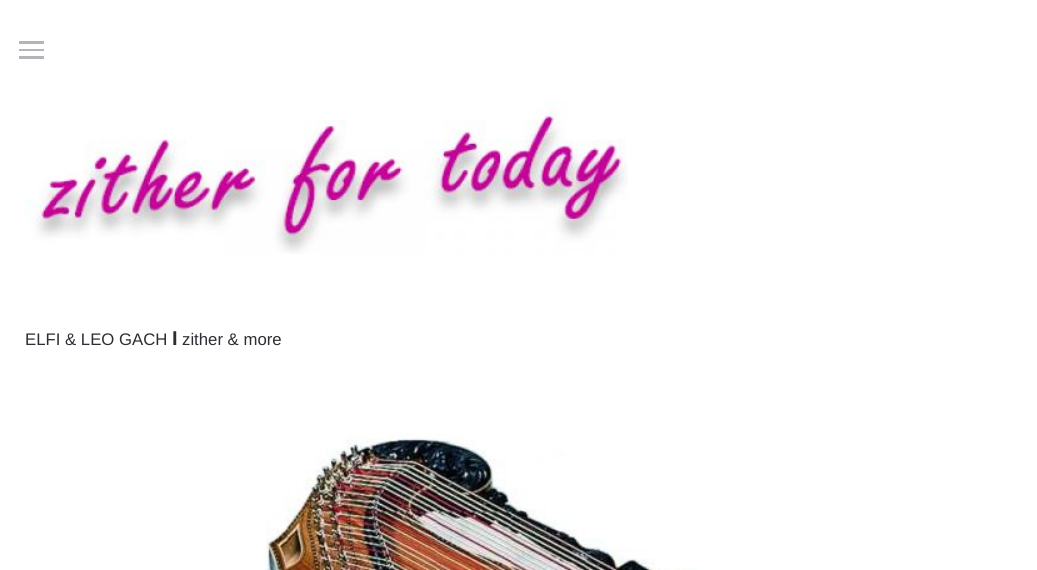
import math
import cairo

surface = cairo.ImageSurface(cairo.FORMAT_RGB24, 1037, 570)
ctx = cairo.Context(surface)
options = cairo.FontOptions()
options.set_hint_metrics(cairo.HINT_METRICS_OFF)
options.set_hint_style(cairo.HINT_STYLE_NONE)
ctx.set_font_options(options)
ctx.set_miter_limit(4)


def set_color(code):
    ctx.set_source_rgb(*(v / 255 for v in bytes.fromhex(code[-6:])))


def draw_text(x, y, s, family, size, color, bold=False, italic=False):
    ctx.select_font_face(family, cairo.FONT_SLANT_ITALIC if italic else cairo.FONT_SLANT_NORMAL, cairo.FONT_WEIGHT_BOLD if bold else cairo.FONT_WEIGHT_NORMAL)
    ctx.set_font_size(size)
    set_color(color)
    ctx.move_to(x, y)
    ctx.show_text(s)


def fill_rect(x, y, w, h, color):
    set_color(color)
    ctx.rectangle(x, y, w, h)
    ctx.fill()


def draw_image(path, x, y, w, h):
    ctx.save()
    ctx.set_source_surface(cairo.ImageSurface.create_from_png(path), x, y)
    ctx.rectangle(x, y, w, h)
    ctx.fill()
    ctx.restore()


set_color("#ffffff")
ctx.paint()
fill_rect(19, 41, 25, 3, "#b4b5ba")
fill_rect(19, 49, 25, 2, "#b4b5ba")
fill_rect(19, 56, 25, 3, "#b4b5ba")
draw_image("assets/img1.png", 25, 100, 603, 154)
draw_text(25, 345, "ELFI & LEO GACH", "Liberation Sans", 16.75, "#2d2e33")
draw_text(172, 345, "I", "Liberation Sans", 20, "#2d2e33", bold=True)
draw_text(182, 345, "zither & more", "Liberation Sans", 16.75, "#2d2e33")
draw_image("assets/img2.png", 265, 433, 432, 137)
surface.write_to_png("output.png")
